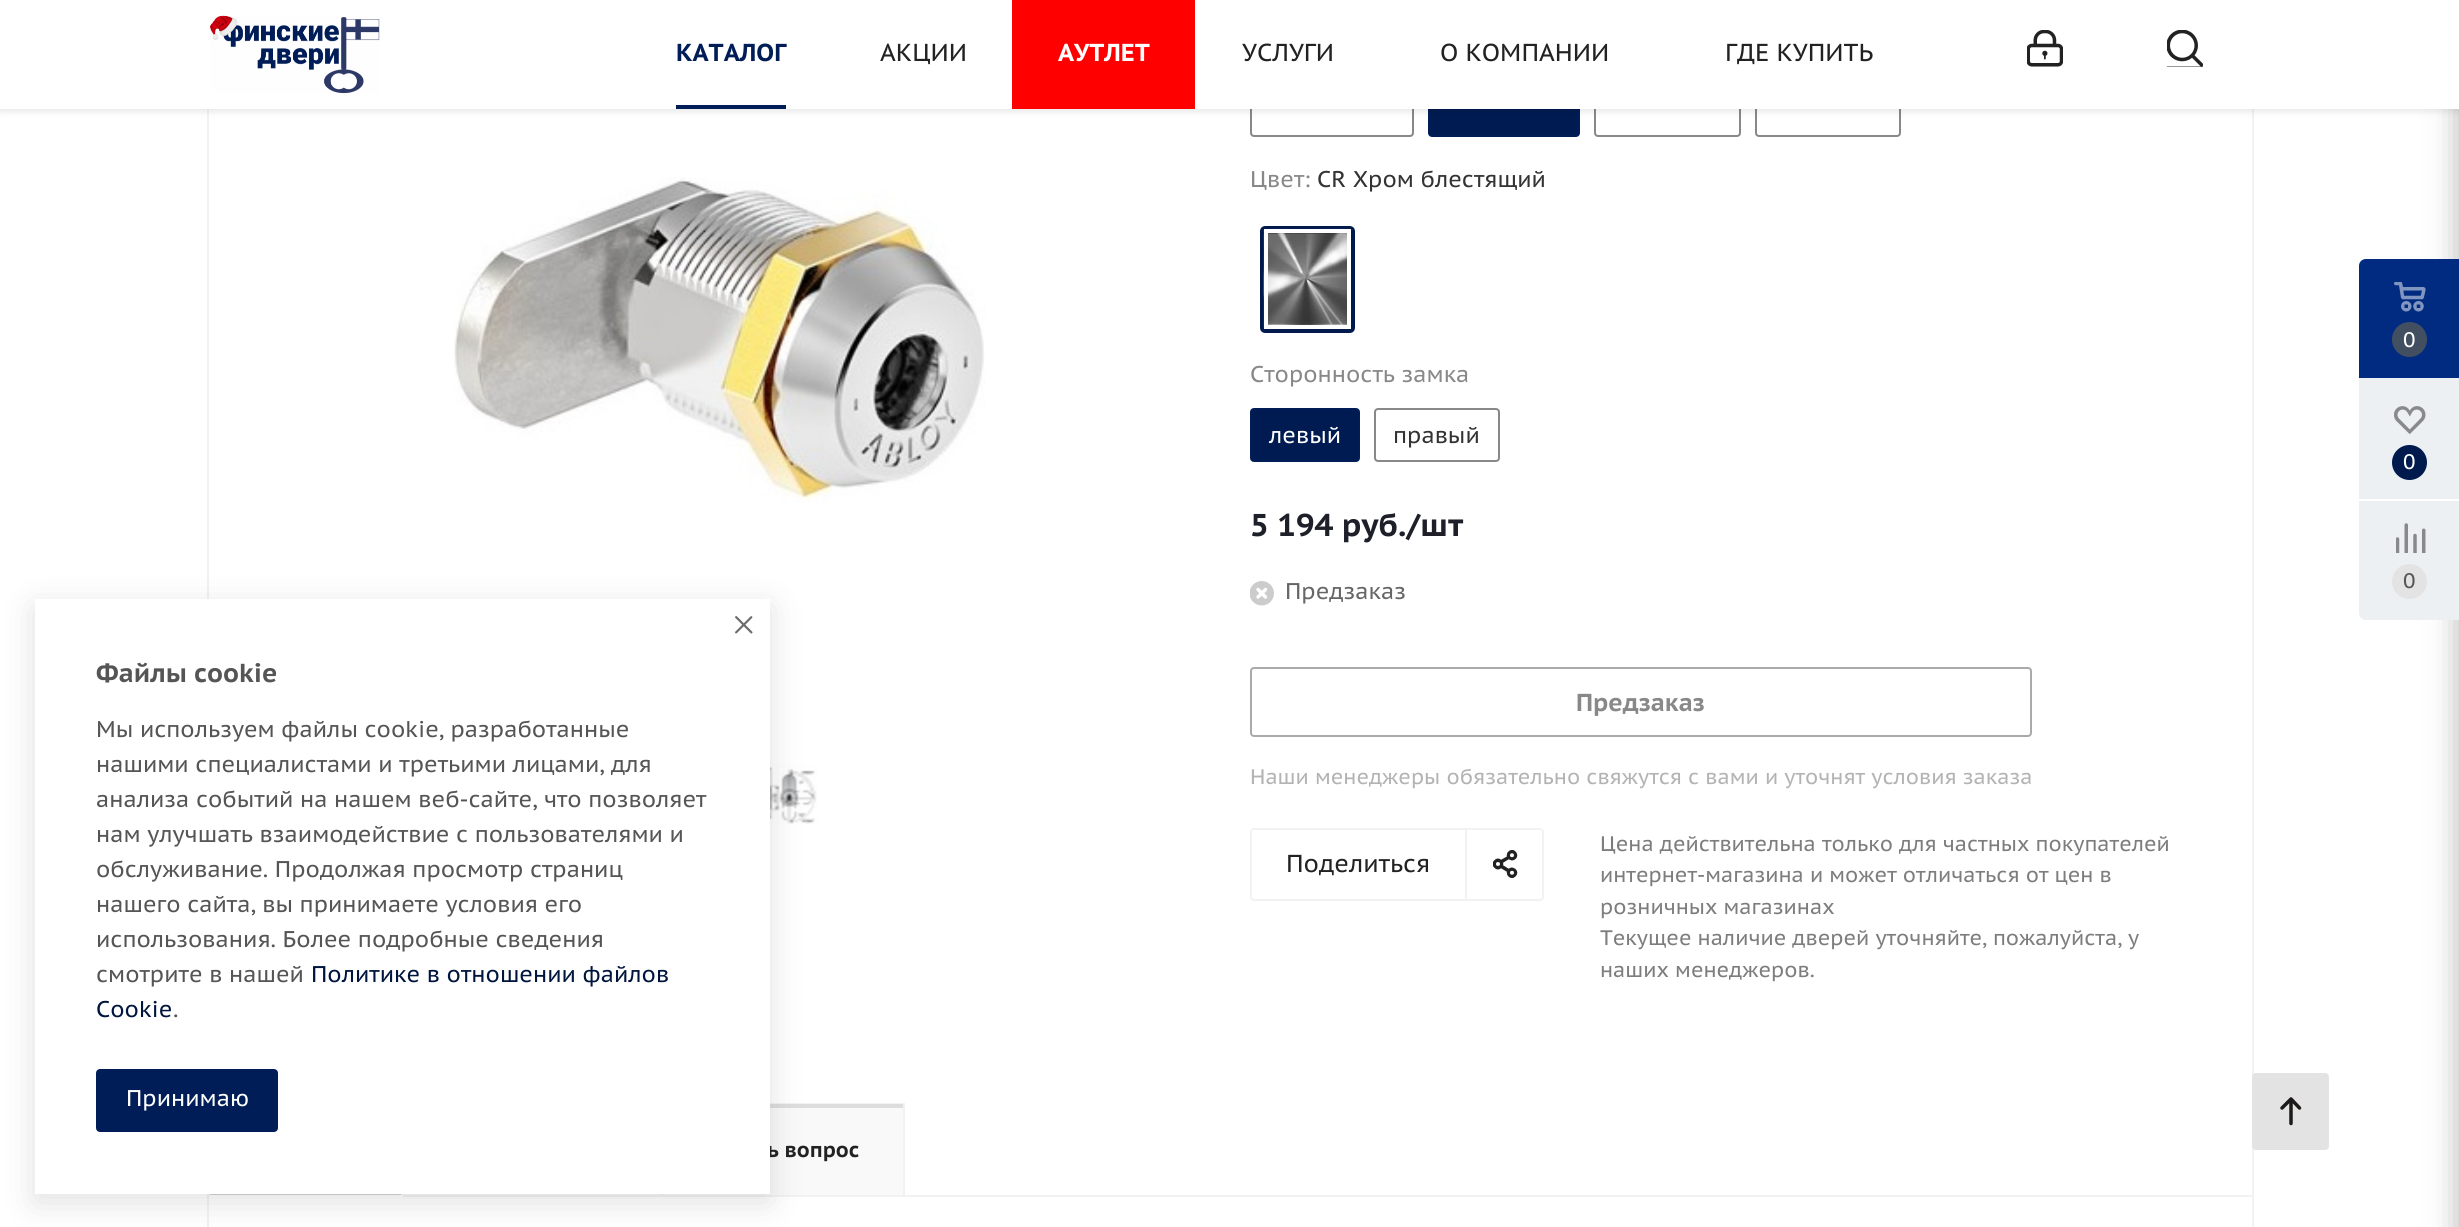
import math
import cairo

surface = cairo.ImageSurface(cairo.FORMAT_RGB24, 2459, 1227)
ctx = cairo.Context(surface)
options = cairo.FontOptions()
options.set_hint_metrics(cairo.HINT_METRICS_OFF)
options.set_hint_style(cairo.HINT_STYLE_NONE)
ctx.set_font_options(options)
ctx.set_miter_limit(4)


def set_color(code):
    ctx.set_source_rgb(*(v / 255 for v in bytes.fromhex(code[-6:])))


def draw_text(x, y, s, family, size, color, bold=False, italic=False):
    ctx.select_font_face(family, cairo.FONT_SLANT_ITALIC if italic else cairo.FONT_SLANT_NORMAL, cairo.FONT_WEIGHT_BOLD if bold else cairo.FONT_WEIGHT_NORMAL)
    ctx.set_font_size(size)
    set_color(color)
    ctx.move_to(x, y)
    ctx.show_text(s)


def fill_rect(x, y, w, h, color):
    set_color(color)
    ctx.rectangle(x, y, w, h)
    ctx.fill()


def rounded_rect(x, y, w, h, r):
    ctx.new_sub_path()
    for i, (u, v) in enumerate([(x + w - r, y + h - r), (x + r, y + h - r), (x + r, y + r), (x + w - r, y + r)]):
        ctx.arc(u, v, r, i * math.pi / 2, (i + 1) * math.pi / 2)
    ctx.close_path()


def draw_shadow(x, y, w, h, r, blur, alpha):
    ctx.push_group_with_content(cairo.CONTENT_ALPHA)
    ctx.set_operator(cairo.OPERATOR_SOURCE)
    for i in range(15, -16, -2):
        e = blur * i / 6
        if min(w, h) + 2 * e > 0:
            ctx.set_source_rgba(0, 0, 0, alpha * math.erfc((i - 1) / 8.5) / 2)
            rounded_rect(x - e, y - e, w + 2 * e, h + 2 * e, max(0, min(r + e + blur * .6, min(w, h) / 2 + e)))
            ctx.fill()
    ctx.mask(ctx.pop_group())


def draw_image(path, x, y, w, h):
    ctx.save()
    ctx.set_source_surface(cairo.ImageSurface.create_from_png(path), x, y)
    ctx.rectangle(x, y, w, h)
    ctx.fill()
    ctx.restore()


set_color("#ffffff")
ctx.paint()
ctx.rectangle(208, -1, 2045, 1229)
set_color("#f2f2f2")
ctx.stroke()
draw_image("assets/img6.png", 770, 763, 47, 61)
fill_rect(403, 1194, 258, 1, "#f9f9fa")
ctx.rectangle(402, 1104, 260, 92)
set_color("#f2f2f2")
ctx.stroke()
fill_rect(664, 1108, 239, 87, "#f9f9fa")
ctx.rectangle(663, 1104, 241, 92)
set_color("#f2f2f2")
ctx.stroke()
fill_rect(770, 1104, 133, 4, "#dddddd")
fill_rect(210, 1194, 191, 1, "#d3d3d3")
fill_rect(401, 1194, 2, 3, "#f5f5f5")
fill_rect(208, 1195, 195, 2, "#ffffff")
fill_rect(208, 1194, 2, 3, "#f5f5f5")
set_color("#000000")
draw_shadow(35, 607, 735, 595, 0, 17.5, 0.12)
draw_text(767, 1157, "ь вопрос", "PT Sans Caption", 21, "#222222", bold=True)
fill_rect(35, 599, 735, 595, "#ffffff")
draw_image("assets/img1.png", 735, 616, 18, 18)
draw_text(96, 682, "Файлы cookie", "PT Sans Caption", 26, "#555555", bold=True)
draw_text(96, 737, "Мы используем файлы cookie, разработанные", "PT Sans Caption", 22.75, "#555555")
draw_text(96, 772, "нашими специалистами и третьими лицами, для", "PT Sans Caption", 22.75, "#555555")
draw_text(96, 807, "анализа событий на нашем веб-сайте, что позволяет", "PT Sans Caption", 22.75, "#555555")
draw_text(96, 842, "нам улучшать взаимодействие с пользователями и", "PT Sans Caption", 22.75, "#555555")
draw_text(96, 877, "обслуживание. Продолжая просмотр страниц", "PT Sans Caption", 22.75, "#555555")
draw_text(96, 912, "нашего сайта, вы принимаете условия его", "PT Sans Caption", 22.75, "#555555")
draw_text(96, 947, "использования. Более подробные сведения", "PT Sans Caption", 22.75, "#555555")
draw_text(96, 982, "смотрите в нашей", "PT Sans Caption", 22.75, "#555555")
draw_text(311, 982, "Политике в отношении файлов", "PT Sans Caption", 22.75, "#00153e")
draw_text(96, 1017, "Cookie", "PT Sans Caption", 22.75, "#00153e")
draw_text(173, 1017, ".", "PT Sans Caption", 22.75, "#555555")
set_color("#001d57")
rounded_rect(97, 1070, 180, 61, 3)
ctx.fill_preserve()
ctx.stroke()
draw_text(126, 1106, "Принимаю", "PT Sans Caption", 22.75, "#ffffff")
rounded_rect(1251, 83, 162, 53, 3)
set_color("#888888")
ctx.stroke()
set_color("#001b52")
rounded_rect(1429, 83, 150, 53, 3)
ctx.fill_preserve()
set_color("#001d57")
ctx.stroke()
rounded_rect(1595, 83, 145, 53, 3)
set_color("#888888")
ctx.stroke()
rounded_rect(1756, 83, 144, 53, 3)
ctx.stroke()
set_color("#000000")
draw_shadow(0, 2, 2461, 108, 0, 4.5, 0.14)
set_color("#2c2c2c")
draw_shadow(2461, 11, 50, 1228, 4, 16, 0.4)
fill_rect(0, 0, 2459, 109, "#ffffff")
draw_image("assets/img2.png", 210, 15, 170, 79)
draw_text(676, 61, "КАТАЛОГ", "PT Sans Caption", 24.5, "#001d57", bold=True)
fill_rect(676, 105, 110, 4, "#001d57")
draw_text(880, 61, "АКЦИИ", "PT Sans Caption", 24.5, "#222222")
fill_rect(1012, 0, 183, 109, "#ff0000")
draw_text(1058, 61, "АУТЛЕТ", "PT Sans Caption", 24.5, "#ffffff", bold=True)
draw_text(1242, 61, "УСЛУГИ", "PT Sans Caption", 24.5, "#222222")
draw_text(1440, 61, "О КОМПАНИИ", "PT Sans Caption", 24.5, "#222222")
draw_text(1725, 61, "ГДЕ КУПИТЬ", "PT Sans Caption", 24.5, "#222222")
draw_image("assets/img3.png", 2027, 30, 36, 37)
fill_rect(2167, 30, 36, 37, "#222222")
draw_image("assets/img4.png", 2167, 30, 36, 37)
draw_image("assets/img5.png", 454, 177, 531, 326)
draw_text(1250, 187, "Цвет:", "PT Sans Caption", 22.75, "#888888")
draw_text(1317, 187, "CR Хром блестящий", "PT Sans Caption", 22.75, "#333333")
rounded_rect(1262, 228, 91, 103, 3)
set_color("#001a4d")
ctx.set_line_width(4)
ctx.stroke()
draw_image("assets/img7.png", 1263, 228, 88, 101)
ctx.rectangle(1266, 231, 83, 96)
set_color("#ffffff")
ctx.stroke()
draw_text(1250, 382, "Сторонность замка", "PT Sans Caption", 22.75, "#888888")
set_color("#001b52")
rounded_rect(1251, 409, 108, 52, 3)
ctx.fill_preserve()
set_color("#001d57")
ctx.set_line_width(2)
ctx.stroke()
draw_text(1269, 443, "левый", "PT Sans Caption", 22.75, "#ffffff")
rounded_rect(1375, 409, 124, 52, 3)
set_color("#888888")
ctx.stroke()
draw_text(1393, 443, "правый", "PT Sans Caption", 22.75, "#333333")
draw_text(1250, 536, "5 194 руб./шт", "PT Sans Caption", 31.5, "#1d2029", bold=True)
draw_image("assets/img8.png", 1250, 581, 24, 25)
draw_text(1285, 599, "Предзаказ", "PT Sans Caption", 22.75, "#666666")
rounded_rect(1251, 668, 780, 68, 3)
set_color("#aaaaaa")
ctx.stroke()
draw_text(1576, 711, "Предзаказ", "PT Sans Caption", 24.5, "#888888", bold=True)
draw_text(1250, 784, "Наши менеджеры обязательно свяжутся с вами и уточнят условия заказа", "PT Sans Caption", 21, "#b3b3b3")
fill_rect(1465, 828, 2, 73, "#f2f2f2")
draw_image("assets/img9.png", 1493, 850, 25, 28)
rounded_rect(1251, 829, 292, 71, 3)
ctx.stroke()
draw_text(1286, 872, "Поделиться", "PT Sans Caption", 24.5, "#222222")
draw_text(1600, 851, "Цена действительна только для частных покупателей", "PT Sans Caption", 21, "#7d7d7d")
draw_text(1600, 882, "интернет-магазина и может отличаться от цен в", "PT Sans Caption", 21, "#7d7d7d")
draw_text(1600, 914, "розничных магазинах", "PT Sans Caption", 21, "#7d7d7d")
draw_text(1600, 945, "Текущее наличие дверей уточняйте, пожалуйста, у", "PT Sans Caption", 21, "#7d7d7d")
draw_text(1600, 977, "наших менеджеров.", "PT Sans Caption", 21, "#7d7d7d")
fill_rect(905, 1195, 1347, 2, "#f2f2f2")
set_color("#edf0f3")
ctx.new_path()
ctx.move_to(2366, 259)
ctx.line_to(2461, 259)
ctx.line_to(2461, 620)
ctx.line_to(2366, 620)
ctx.curve_to(2362, 620, 2359, 617, 2359, 613)
ctx.line_to(2359, 266)
ctx.curve_to(2359, 262, 2362, 259, 2366, 259)
ctx.close_path()
ctx.fill()
set_color("#002b80")
ctx.new_path()
ctx.move_to(2366, 259)
ctx.line_to(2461, 259)
ctx.line_to(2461, 378)
ctx.line_to(2359, 378)
ctx.line_to(2359, 266)
ctx.curve_to(2359, 262, 2362, 259, 2366, 259)
ctx.close_path()
ctx.fill()
draw_image("assets/img10.png", 2394, 282, 32, 30)
set_color("#424f60")
ctx.arc(2409.5, 339.5, 17.5, 0, 2 * math.pi)
ctx.fill()
draw_text(2403, 347, "0", "PT Sans Caption", 21, "#ffffff")
draw_image("assets/img11.png", 2394, 406, 32, 28)
set_color("#001a4d")
ctx.arc(2409.5, 462.5, 17.5, 0, 2 * math.pi)
ctx.fill()
draw_text(2403, 469, "0", "PT Sans Caption", 21, "#ffffff")
fill_rect(2359, 499, 100, 2, "#ffffff")
draw_image("assets/img12.png", 2396, 523, 30, 30)
set_color("#e3e3e3")
ctx.arc(2409.5, 581.5, 17.5, 0, 2 * math.pi)
ctx.fill()
draw_text(2403, 588, "0", "PT Sans Caption", 21, "#555555")
set_color("#e3e3e3")
rounded_rect(2252, 1073, 77, 77, 4)
ctx.fill()
ctx.new_path()
ctx.move_to(2291, 1099)
ctx.line_to(2291, 1123.5)
ctx.move_to(2282, 1108)
ctx.line_to(2291, 1099)
ctx.line_to(2299.5, 1108)
set_color("#1d1a1a")
ctx.set_line_width(3.5)
ctx.set_line_cap(cairo.LINE_CAP_ROUND)
ctx.set_line_join(cairo.LINE_JOIN_ROUND)
ctx.stroke()
surface.write_to_png("output.png")
